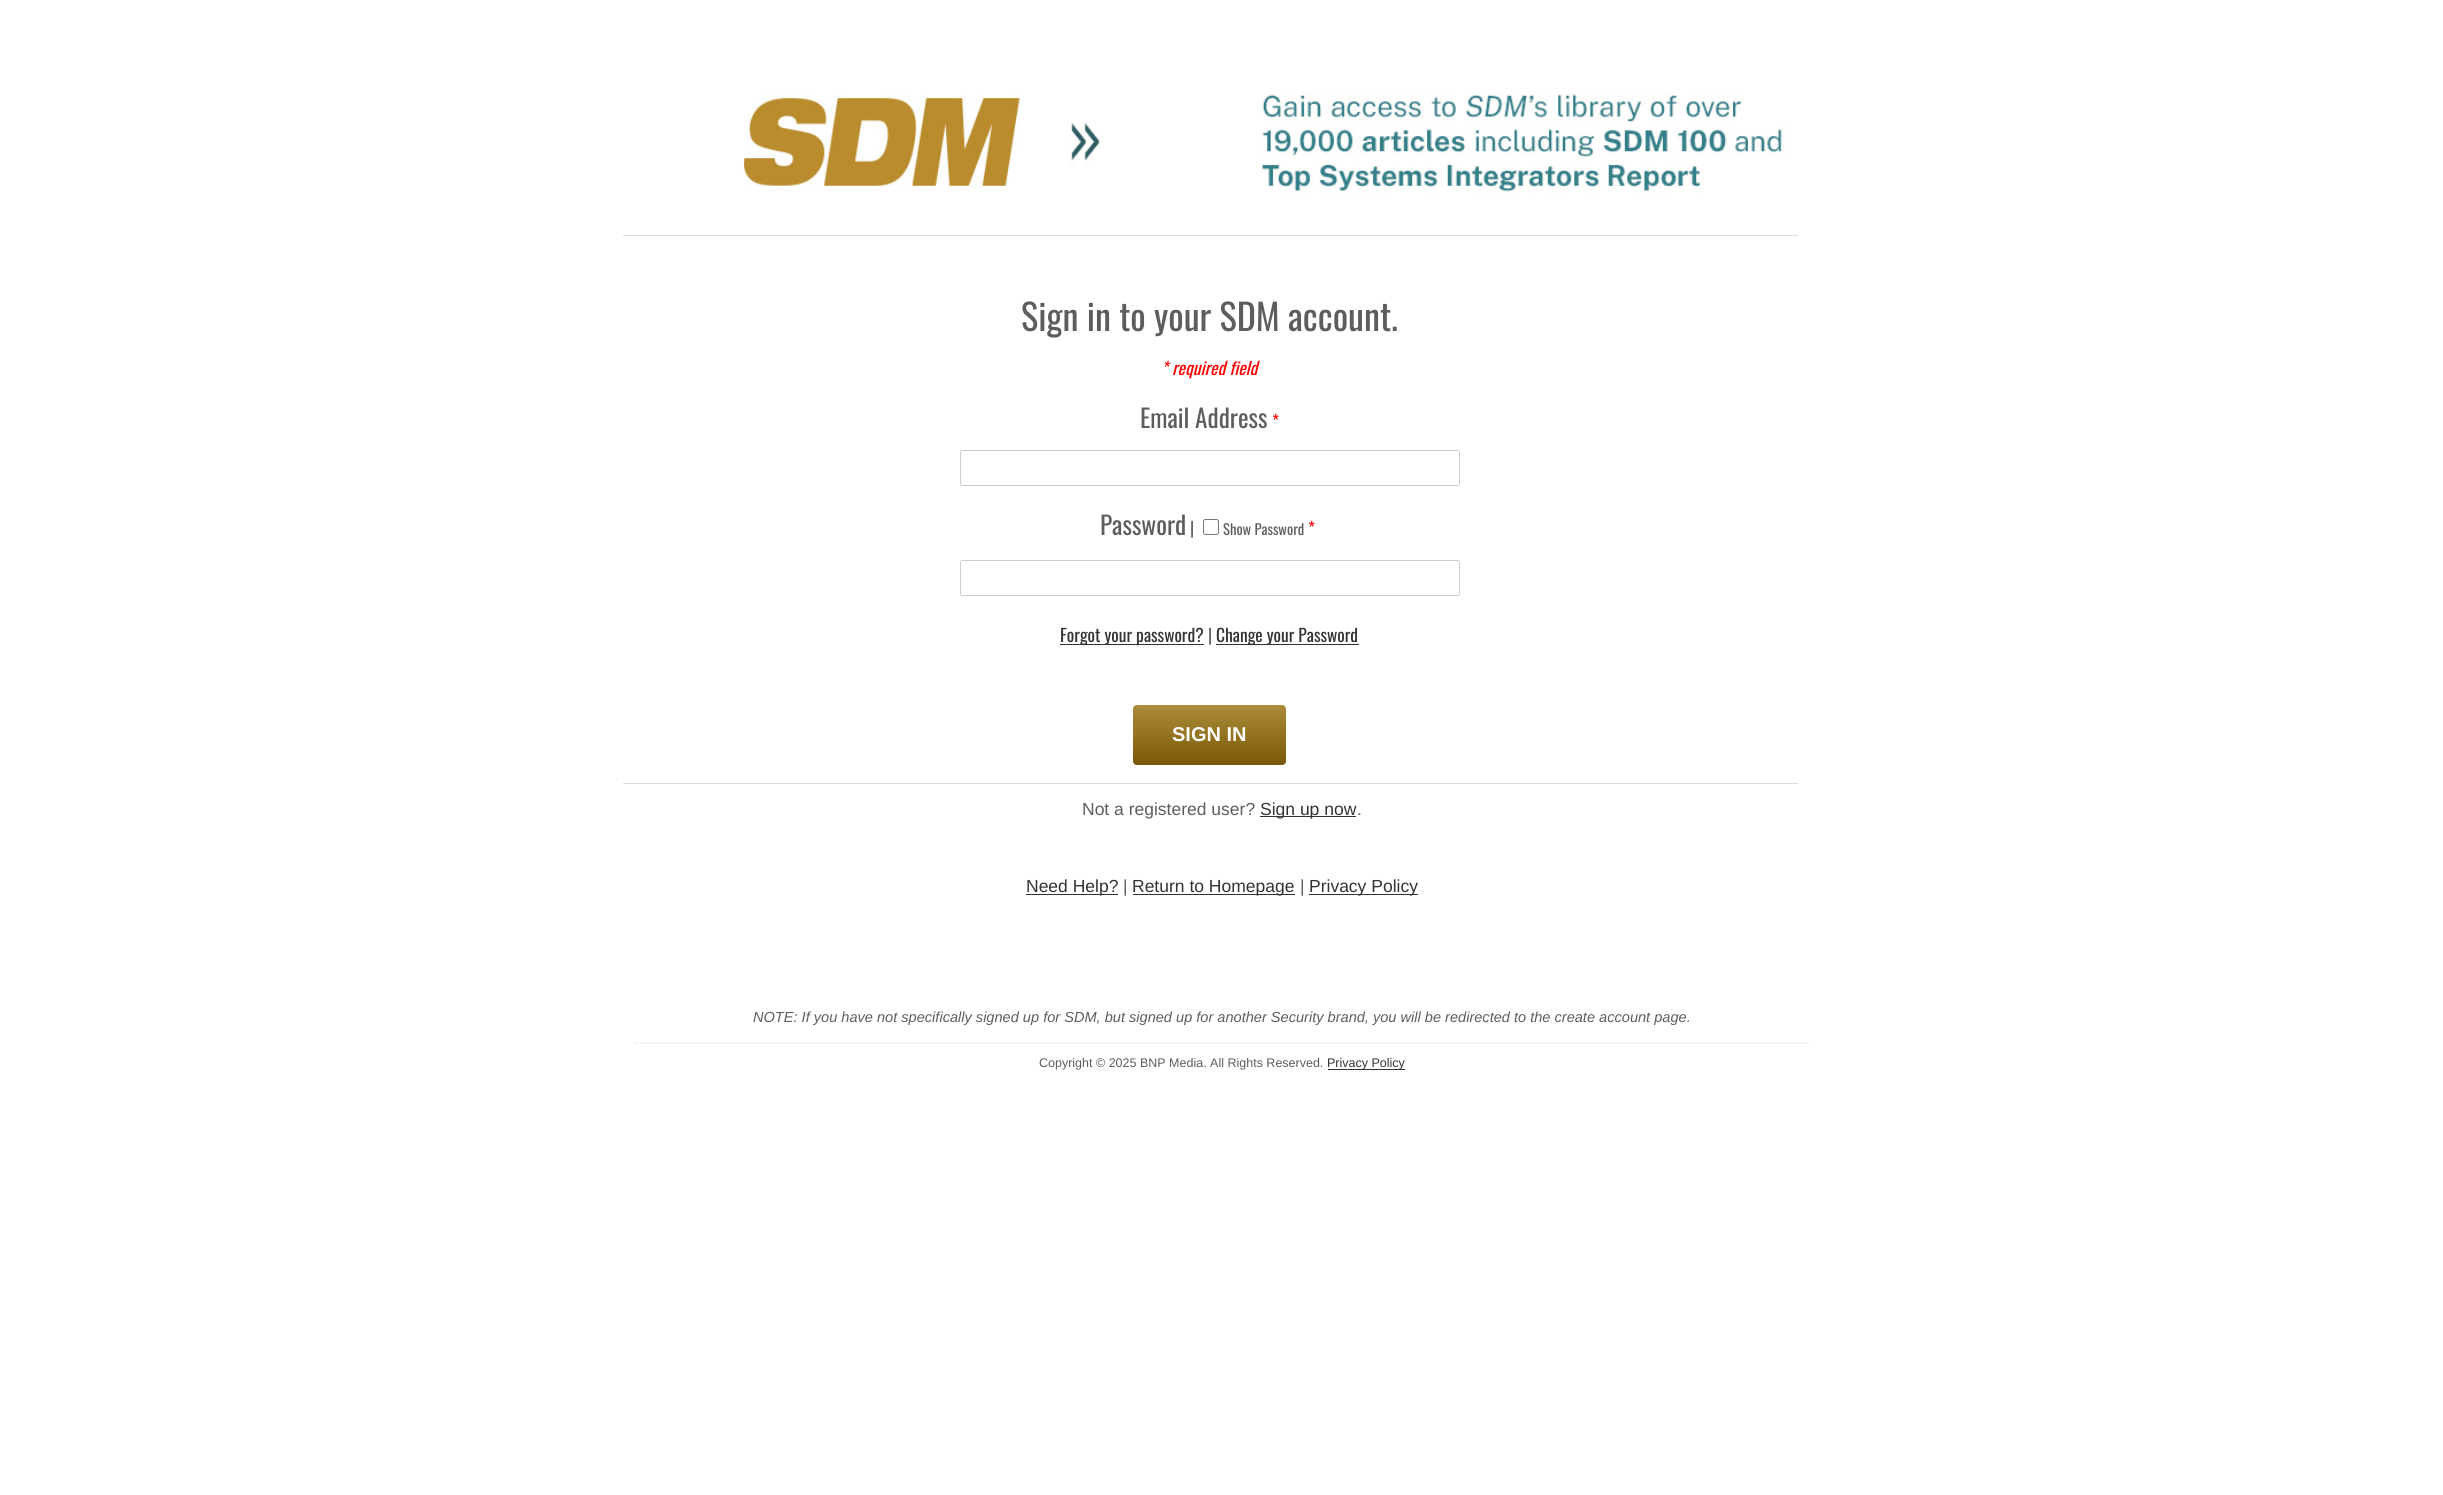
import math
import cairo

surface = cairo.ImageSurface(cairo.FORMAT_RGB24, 2443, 1495)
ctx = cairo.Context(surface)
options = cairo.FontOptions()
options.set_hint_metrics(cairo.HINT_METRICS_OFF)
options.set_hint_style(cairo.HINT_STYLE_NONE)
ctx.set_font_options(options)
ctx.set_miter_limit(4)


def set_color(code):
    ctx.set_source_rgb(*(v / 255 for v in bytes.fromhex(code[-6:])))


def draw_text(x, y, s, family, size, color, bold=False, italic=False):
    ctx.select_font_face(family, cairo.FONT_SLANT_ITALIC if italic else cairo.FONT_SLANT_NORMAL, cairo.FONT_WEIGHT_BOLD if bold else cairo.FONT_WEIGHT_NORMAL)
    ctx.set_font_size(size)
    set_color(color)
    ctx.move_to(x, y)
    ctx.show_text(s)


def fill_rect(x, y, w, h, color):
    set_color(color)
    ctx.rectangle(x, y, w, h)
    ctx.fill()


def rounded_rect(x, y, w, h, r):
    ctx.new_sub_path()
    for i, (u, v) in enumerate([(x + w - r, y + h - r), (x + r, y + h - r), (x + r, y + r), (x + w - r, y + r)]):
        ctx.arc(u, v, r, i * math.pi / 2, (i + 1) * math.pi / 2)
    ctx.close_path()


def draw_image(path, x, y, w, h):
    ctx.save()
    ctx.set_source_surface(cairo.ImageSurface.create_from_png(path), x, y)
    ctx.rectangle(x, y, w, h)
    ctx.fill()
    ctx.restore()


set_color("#ffffff")
ctx.paint()
draw_image("assets/img1.png", 743, 94, 359, 92)
draw_image("assets/img2.png", 1262, 93, 524, 102)
fill_rect(623, 235, 1175, 1, "#dddddd")
draw_text(1021, 331, "Sign in to your SDM account.", "Oswald", 36.25, "#5d5d5d")
draw_text(1161, 375, "* required field", "Oswald", 17.5, "#ff0000", italic=True)
draw_text(1140, 428, "Email Address", "Oswald", 25.25, "#5d5d5d")
draw_text(1272, 428, "*", "Oswald", 17.5, "#ff0000")
rounded_rect(960.5, 450.5, 499, 35, 2)
set_color("#cccccc")
ctx.set_line_width(1)
ctx.stroke()
draw_text(1100, 535, "Password", "Oswald", 25.25, "#5d5d5d")
draw_text(1190, 535, "|", "Oswald", 17.5, "#5d5d5d")
rounded_rect(1203.5, 519.5, 15, 15, 2)
set_color("#767676")
ctx.stroke()
draw_text(1223, 535, "Show Password", "Oswald", 14.58, "#5d5d5d")
draw_text(1308, 535, "*", "Oswald", 17.5, "#ff0000")
rounded_rect(960.5, 560.5, 499, 35, 2)
set_color("#cccccc")
ctx.stroke()
fill_rect(1060, 644, 144, 1, "#333333")
draw_text(1060, 642, "Forgot your password?", "Oswald", 17.5, "#333333")
draw_text(1208, 642, "|", "Oswald", 17.5, "#5d5d5d")
fill_rect(1216, 644, 143, 1, "#333333")
draw_text(1216, 642, "Change your Password", "Oswald", 17.5, "#333333")
set_color("#976e07")
rounded_rect(1133, 705, 153, 60, 4)
ctx.fill()
gradient = cairo.LinearGradient(1209, 705, 1209, 765)
gradient.add_color_stop_rgba(0, 1, 1, 1, 0.2)
gradient.add_color_stop_rgba(1, 0, 0, 0, 0.2)
ctx.set_source(gradient)
rounded_rect(1133, 705, 153, 60, 4)
ctx.fill()
draw_text(1172, 741, "SIGN IN", "Liberation Sans", 20, "#ffffff", bold=True)
fill_rect(623, 783, 1175, 1, "#dddddd")
draw_text(1082, 815, "Not a registered user?", "Liberation Sans", 17.5, "#5d5d5d")
fill_rect(1260, 816, 96, 1, "#333333")
draw_text(1260, 815, "Sign up now", "Liberation Sans", 17.5, "#333333")
draw_text(1357, 815, ".", "Liberation Sans", 17.5, "#5d5d5d")
fill_rect(1026, 894, 92, 1, "#333333")
draw_text(1026, 892, "Need Help?", "Liberation Sans", 17.5, "#333333")
draw_text(1123, 892, "|", "Liberation Sans", 17.5, "#5d5d5d")
fill_rect(1133, 894, 162, 1, "#333333")
draw_text(1132, 892, "Return to Homepage", "Liberation Sans", 17.5, "#333333")
draw_text(1300, 892, "|", "Liberation Sans", 17.5, "#5d5d5d")
fill_rect(1309, 894, 109, 1, "#333333")
draw_text(1309, 892, "Privacy Policy", "Liberation Sans", 17.5, "#333333")
draw_text(753, 1022, "NOTE: If you have not specifically signed up for SDM, but signed up for another Security brand, you will be redirected to the create account page.", "Liberation Sans", 14.58, "#5d5d5d", italic=True)
ctx.new_path()
ctx.move_to(635, 1043)
ctx.line_to(1810, 1043)
set_color("#dddddd")
ctx.set_line_width(1.2)
ctx.set_dash([1.25, 1.25])
ctx.stroke()
draw_text(1039, 1067, "Copyright © 2025 BNP Media. All Rights Reserved.", "Liberation Sans", 12.5, "#5d5d5d")
fill_rect(1328, 1069, 77, 1, "#333333")
draw_text(1327, 1067, "Privacy Policy", "Liberation Sans", 12.5, "#333333")
surface.write_to_png("output.png")
